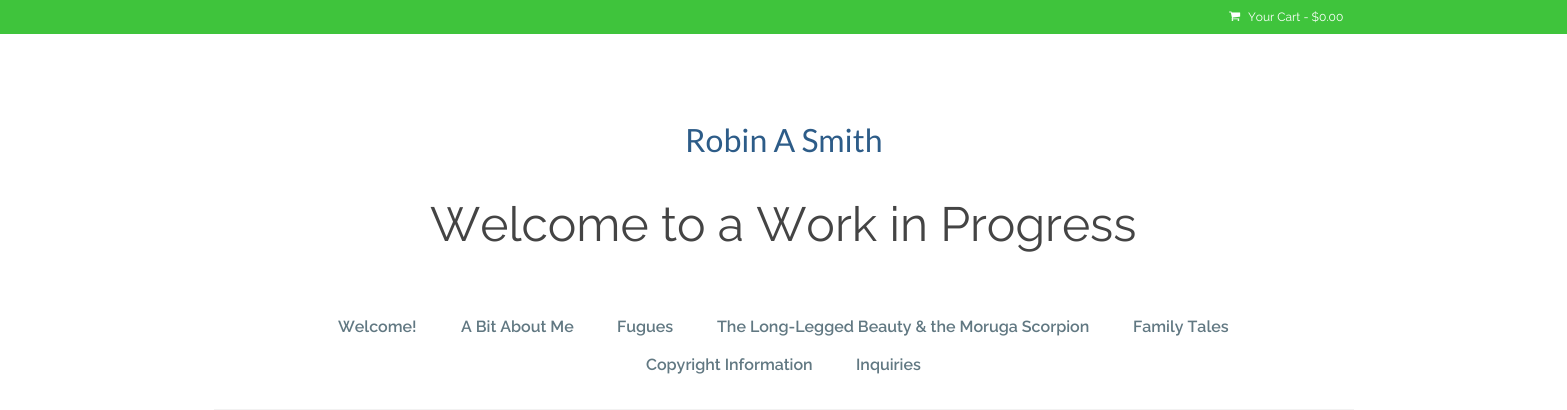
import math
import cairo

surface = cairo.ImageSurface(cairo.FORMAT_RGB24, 1567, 410)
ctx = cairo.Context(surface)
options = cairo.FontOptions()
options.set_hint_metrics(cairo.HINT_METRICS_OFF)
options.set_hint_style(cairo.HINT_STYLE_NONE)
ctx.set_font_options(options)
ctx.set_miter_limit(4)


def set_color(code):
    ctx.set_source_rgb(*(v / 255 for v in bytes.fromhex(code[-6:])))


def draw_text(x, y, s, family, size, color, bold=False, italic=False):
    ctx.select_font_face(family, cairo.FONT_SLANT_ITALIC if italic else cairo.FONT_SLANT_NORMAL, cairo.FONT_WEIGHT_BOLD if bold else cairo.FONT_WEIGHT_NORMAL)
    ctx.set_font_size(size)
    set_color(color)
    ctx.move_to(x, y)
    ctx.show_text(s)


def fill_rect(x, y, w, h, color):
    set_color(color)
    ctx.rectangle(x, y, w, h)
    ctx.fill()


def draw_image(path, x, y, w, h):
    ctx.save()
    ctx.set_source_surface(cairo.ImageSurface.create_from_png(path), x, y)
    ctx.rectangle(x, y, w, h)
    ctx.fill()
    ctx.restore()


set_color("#ffffff")
ctx.paint()
fill_rect(0, 0, 1567, 34, "#3fc43c")
draw_image("assets/img1.png", 1229, 11, 12, 10)
draw_text(1248, 21, "Your Cart - $0.00", "Raleway", 12, "#ffffff")
draw_text(685, 152, "Robin A Smith", "Lato", 32, "#2d5c88")
draw_text(430, 241, "Welcome to a Work in Progress", "Raleway", 48, "#444444")
draw_text(338, 332, "Welcome!", "Raleway SemiBold", 16, "#617882")
draw_text(461, 332, "A Bit About Me", "Raleway SemiBold", 16, "#617882")
draw_text(617, 332, "Fugues", "Raleway SemiBold", 16, "#617882")
draw_text(717, 332, "The Long-Legged Beauty & the Moruga Scorpion", "Raleway SemiBold", 16, "#617882")
draw_text(1133, 332, "Family Tales", "Raleway SemiBold", 16, "#617882")
draw_text(646, 370, "Copyright Information", "Raleway SemiBold", 16, "#617882")
draw_text(856, 370, "Inquiries", "Raleway SemiBold", 16, "#617882")
fill_rect(214, 409, 1140, 1, "#f2f2f2")
surface.write_to_png("output.png")
